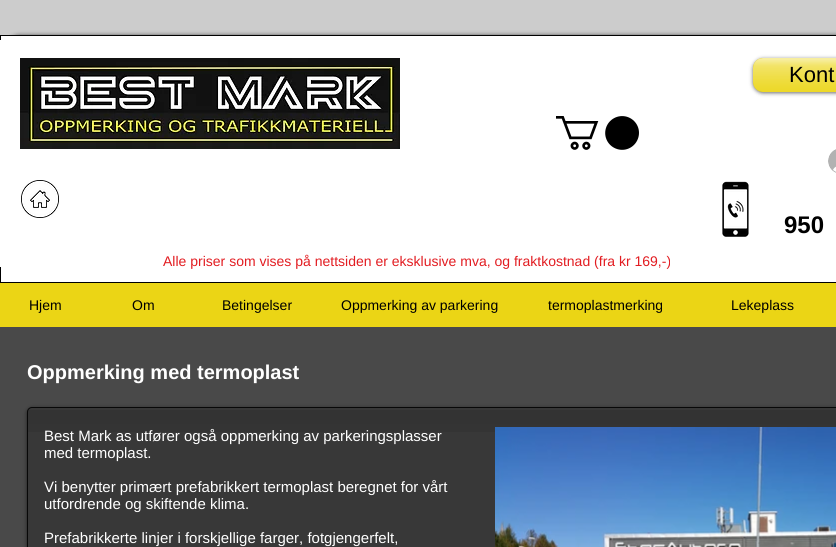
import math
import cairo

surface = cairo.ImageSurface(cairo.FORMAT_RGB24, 836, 547)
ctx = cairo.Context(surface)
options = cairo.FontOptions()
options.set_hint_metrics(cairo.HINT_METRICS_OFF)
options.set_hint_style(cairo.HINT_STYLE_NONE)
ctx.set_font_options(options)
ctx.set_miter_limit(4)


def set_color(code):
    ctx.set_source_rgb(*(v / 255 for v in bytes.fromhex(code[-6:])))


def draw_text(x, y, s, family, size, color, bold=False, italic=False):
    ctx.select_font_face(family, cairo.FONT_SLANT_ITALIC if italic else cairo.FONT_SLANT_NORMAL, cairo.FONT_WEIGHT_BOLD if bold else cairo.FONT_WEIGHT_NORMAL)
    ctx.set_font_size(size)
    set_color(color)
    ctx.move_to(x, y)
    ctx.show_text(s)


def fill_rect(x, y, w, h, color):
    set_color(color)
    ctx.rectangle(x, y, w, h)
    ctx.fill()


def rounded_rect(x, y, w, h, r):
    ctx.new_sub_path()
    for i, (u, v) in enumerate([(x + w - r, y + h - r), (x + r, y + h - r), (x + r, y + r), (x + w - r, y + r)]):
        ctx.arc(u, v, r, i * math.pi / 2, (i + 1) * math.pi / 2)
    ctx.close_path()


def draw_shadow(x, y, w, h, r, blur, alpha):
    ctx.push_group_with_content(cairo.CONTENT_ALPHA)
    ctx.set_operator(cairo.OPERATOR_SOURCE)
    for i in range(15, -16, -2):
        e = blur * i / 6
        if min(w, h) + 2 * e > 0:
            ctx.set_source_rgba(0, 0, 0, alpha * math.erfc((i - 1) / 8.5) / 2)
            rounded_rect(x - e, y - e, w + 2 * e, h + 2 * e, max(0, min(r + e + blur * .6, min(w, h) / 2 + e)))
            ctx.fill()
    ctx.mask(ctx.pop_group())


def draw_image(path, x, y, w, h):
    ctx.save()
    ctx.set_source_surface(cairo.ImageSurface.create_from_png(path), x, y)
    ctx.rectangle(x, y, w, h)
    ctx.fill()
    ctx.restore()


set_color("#cccccc")
ctx.paint()
set_color("#000000")
draw_shadow(0, 35, 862, 248, 20, 2, 0.6)
set_color("#ffffff")
ctx.rectangle(0.5, 35.5, 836, 247)
ctx.fill_preserve()
set_color("#000000")
ctx.set_line_width(1)
ctx.stroke()
set_color("#000000")
draw_shadow(753, 59, 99, 34, 10, 2, 0.6)
set_color("#ebd515")
rounded_rect(753, 58, 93, 34, 10)
ctx.fill()
draw_image("assets/img1.png", 753, 58, 83, 34)
draw_text(789, 82, "Kont", "Liberation Sans", 22, "#000000")
draw_image("assets/img2.png", 556, 116, 83, 34)
fill_rect(0, 40, 1, 227, "#ffffff")
draw_image("assets/img3.png", 20, 58, 380, 91)
draw_image("assets/img4.png", 828, 149, 8, 24)
draw_image("assets/img5.png", 21, 180, 38, 38)
draw_image("assets/img6.png", 722, 181, 27, 56)
draw_text(784, 233, "950", "Liberation Sans", 24, "#000000", bold=True)
draw_text(163, 266, "Alle priser som vises på nettsiden er eksklusive mva, og fraktkostnad (fra kr 169,-)", "Liberation Sans", 14, "#e21c21")
set_color("#000000")
draw_shadow(0, 285, 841, 40, 0, 1.5, 0.7)
fill_rect(0, 283, 836, 44, "#ebd515")
draw_text(29, 310, "Hjem", "Liberation Sans", 14, "#000000")
draw_text(132, 310, "Om", "Liberation Sans", 14, "#000000")
draw_text(222, 310, "Betingelser", "Liberation Sans", 14, "#000000")
draw_text(341, 310, "Oppmerking av parkering", "Liberation Sans", 14, "#000000")
draw_text(548, 310, "termoplastmerking", "Liberation Sans", 14, "#000000")
draw_text(731, 310, "Lekeplass", "Liberation Sans", 14, "#000000")
fill_rect(0, 327, 836, 220, "#494949")
draw_text(27, 379, "Oppmerking med termoplast", "Liberation Sans", 20, "#ffffff", bold=True)
ctx.save()
ctx.set_fill_rule(cairo.FILL_RULE_EVEN_ODD)
ctx.new_path()
ctx.move_to(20, 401)
ctx.line_to(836, 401)
ctx.line_to(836, 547)
ctx.line_to(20, 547)
ctx.close_path()
ctx.move_to(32, 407)
ctx.line_to(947, 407)
ctx.curve_to(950, 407, 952, 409, 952, 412)
ctx.line_to(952, 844)
ctx.curve_to(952, 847, 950, 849, 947, 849)
ctx.line_to(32, 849)
ctx.curve_to(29, 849, 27, 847, 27, 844)
ctx.line_to(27, 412)
ctx.curve_to(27, 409, 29, 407, 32, 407)
ctx.close_path()
ctx.clip()
set_color("#000000")
draw_shadow(27, 408, 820, 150, 5, 2, 0.6)
ctx.restore()
ctx.set_source_rgba(0, 0, 0, 0.24)
rounded_rect(27, 407, 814, 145, 5)
ctx.fill()
draw_image("assets/img7.png", 27, 410, 809, 22)
rounded_rect(27.5, 407.5, 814, 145, 4.5)
set_color("#080808")
ctx.stroke()
draw_text(44, 441, "Best Mark as utfører også oppmerking av parkeringsplasser", "Liberation Sans", 15, "#ffffff")
draw_text(44, 458, "med termoplast.", "Liberation Sans", 15, "#ffffff")
draw_text(44, 492, "Vi benytter primært prefabrikkert termoplast beregnet for vårt", "Liberation Sans", 15, "#ffffff")
draw_text(44, 509, "utfordrende og skiftende klima.", "Liberation Sans", 15, "#ffffff")
draw_text(44, 543, "Prefabrikkerte linjer i forskjellige farger, fotgjengerfelt,", "Liberation Sans", 15, "#ffffff")
draw_image("assets/img8.png", 495, 427, 341, 120)
surface.write_to_png("output.png")
